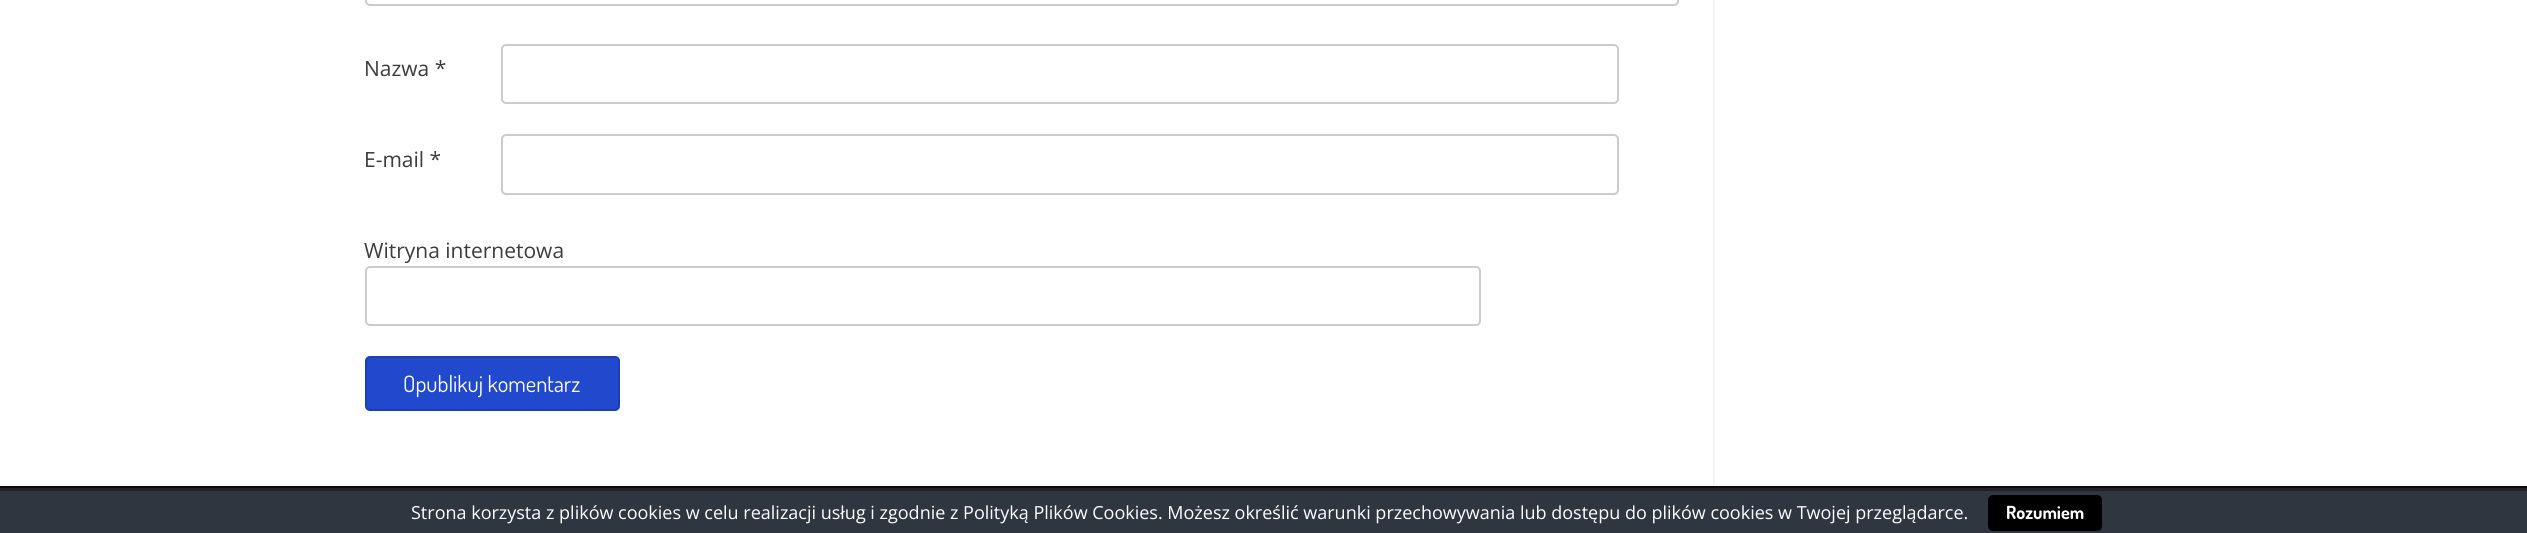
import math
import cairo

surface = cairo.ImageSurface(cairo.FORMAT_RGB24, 2527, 533)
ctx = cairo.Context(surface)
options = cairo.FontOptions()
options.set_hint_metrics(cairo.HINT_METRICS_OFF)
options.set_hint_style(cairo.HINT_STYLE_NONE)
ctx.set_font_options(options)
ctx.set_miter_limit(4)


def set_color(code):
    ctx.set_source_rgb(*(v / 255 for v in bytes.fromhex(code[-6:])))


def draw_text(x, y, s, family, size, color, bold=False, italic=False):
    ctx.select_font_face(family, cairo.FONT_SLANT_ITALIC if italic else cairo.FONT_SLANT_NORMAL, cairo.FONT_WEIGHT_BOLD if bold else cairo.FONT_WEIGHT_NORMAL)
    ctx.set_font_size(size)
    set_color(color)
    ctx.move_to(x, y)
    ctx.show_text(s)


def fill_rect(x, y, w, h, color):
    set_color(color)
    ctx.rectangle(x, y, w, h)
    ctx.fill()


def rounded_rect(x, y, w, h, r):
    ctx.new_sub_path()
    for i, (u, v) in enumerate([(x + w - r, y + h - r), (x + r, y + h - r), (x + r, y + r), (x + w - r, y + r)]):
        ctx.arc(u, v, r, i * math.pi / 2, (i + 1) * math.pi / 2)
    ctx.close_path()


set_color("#ffffff")
ctx.paint()
fill_rect(1713, 0, 2, 486, "#f5f5f5")
rounded_rect(366, -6, 1312, 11, 4)
set_color("#cccccc")
ctx.stroke()
draw_text(364, 76, "Nazwa *", "Open Sans", 21, "#3c3c3c")
rounded_rect(502, 45, 1116, 58, 4)
set_color("#cccccc")
ctx.stroke()
draw_text(364, 167, "E-mail *", "Open Sans", 21, "#3c3c3c")
rounded_rect(502, 135, 1116, 59, 4)
set_color("#cccccc")
ctx.stroke()
draw_text(364, 258, "Witryna internetowa", "Open Sans", 21, "#3c3c3c")
rounded_rect(366, 267, 1114, 58, 4)
set_color("#cccccc")
ctx.stroke()
set_color("#2149ce")
rounded_rect(365, 356, 255, 55, 5)
ctx.fill()
rounded_rect(366, 357, 253, 53, 4)
ctx.set_source_rgba(0, 0, 0, 0.14)
ctx.stroke()
draw_text(403, 392, "Opublikuj komentarz", "Dosis", 22.5, "#ffffff")
fill_rect(0, 488, 2527, 3, "#222222")
fill_rect(0, 486, 2527, 2, "#0c0c0c")
fill_rect(0, 491, 2527, 42, "#2e363f")
draw_text(411, 519, "Strona korzysta z plików cookies w celu realizacji usług i zgodnie z Polityką Plików Cookies. Możesz określić warunki przechowywania lub dostępu do plików cookies w Twojej przeglądarce.", "Open Sans", 18, "#ffffff")
set_color("#000000")
rounded_rect(1988, 495, 114, 36, 5)
ctx.fill()
draw_text(2006, 519, "Rozumiem", "Dosis", 18, "#ffffff", bold=True)
surface.write_to_png("output.png")
